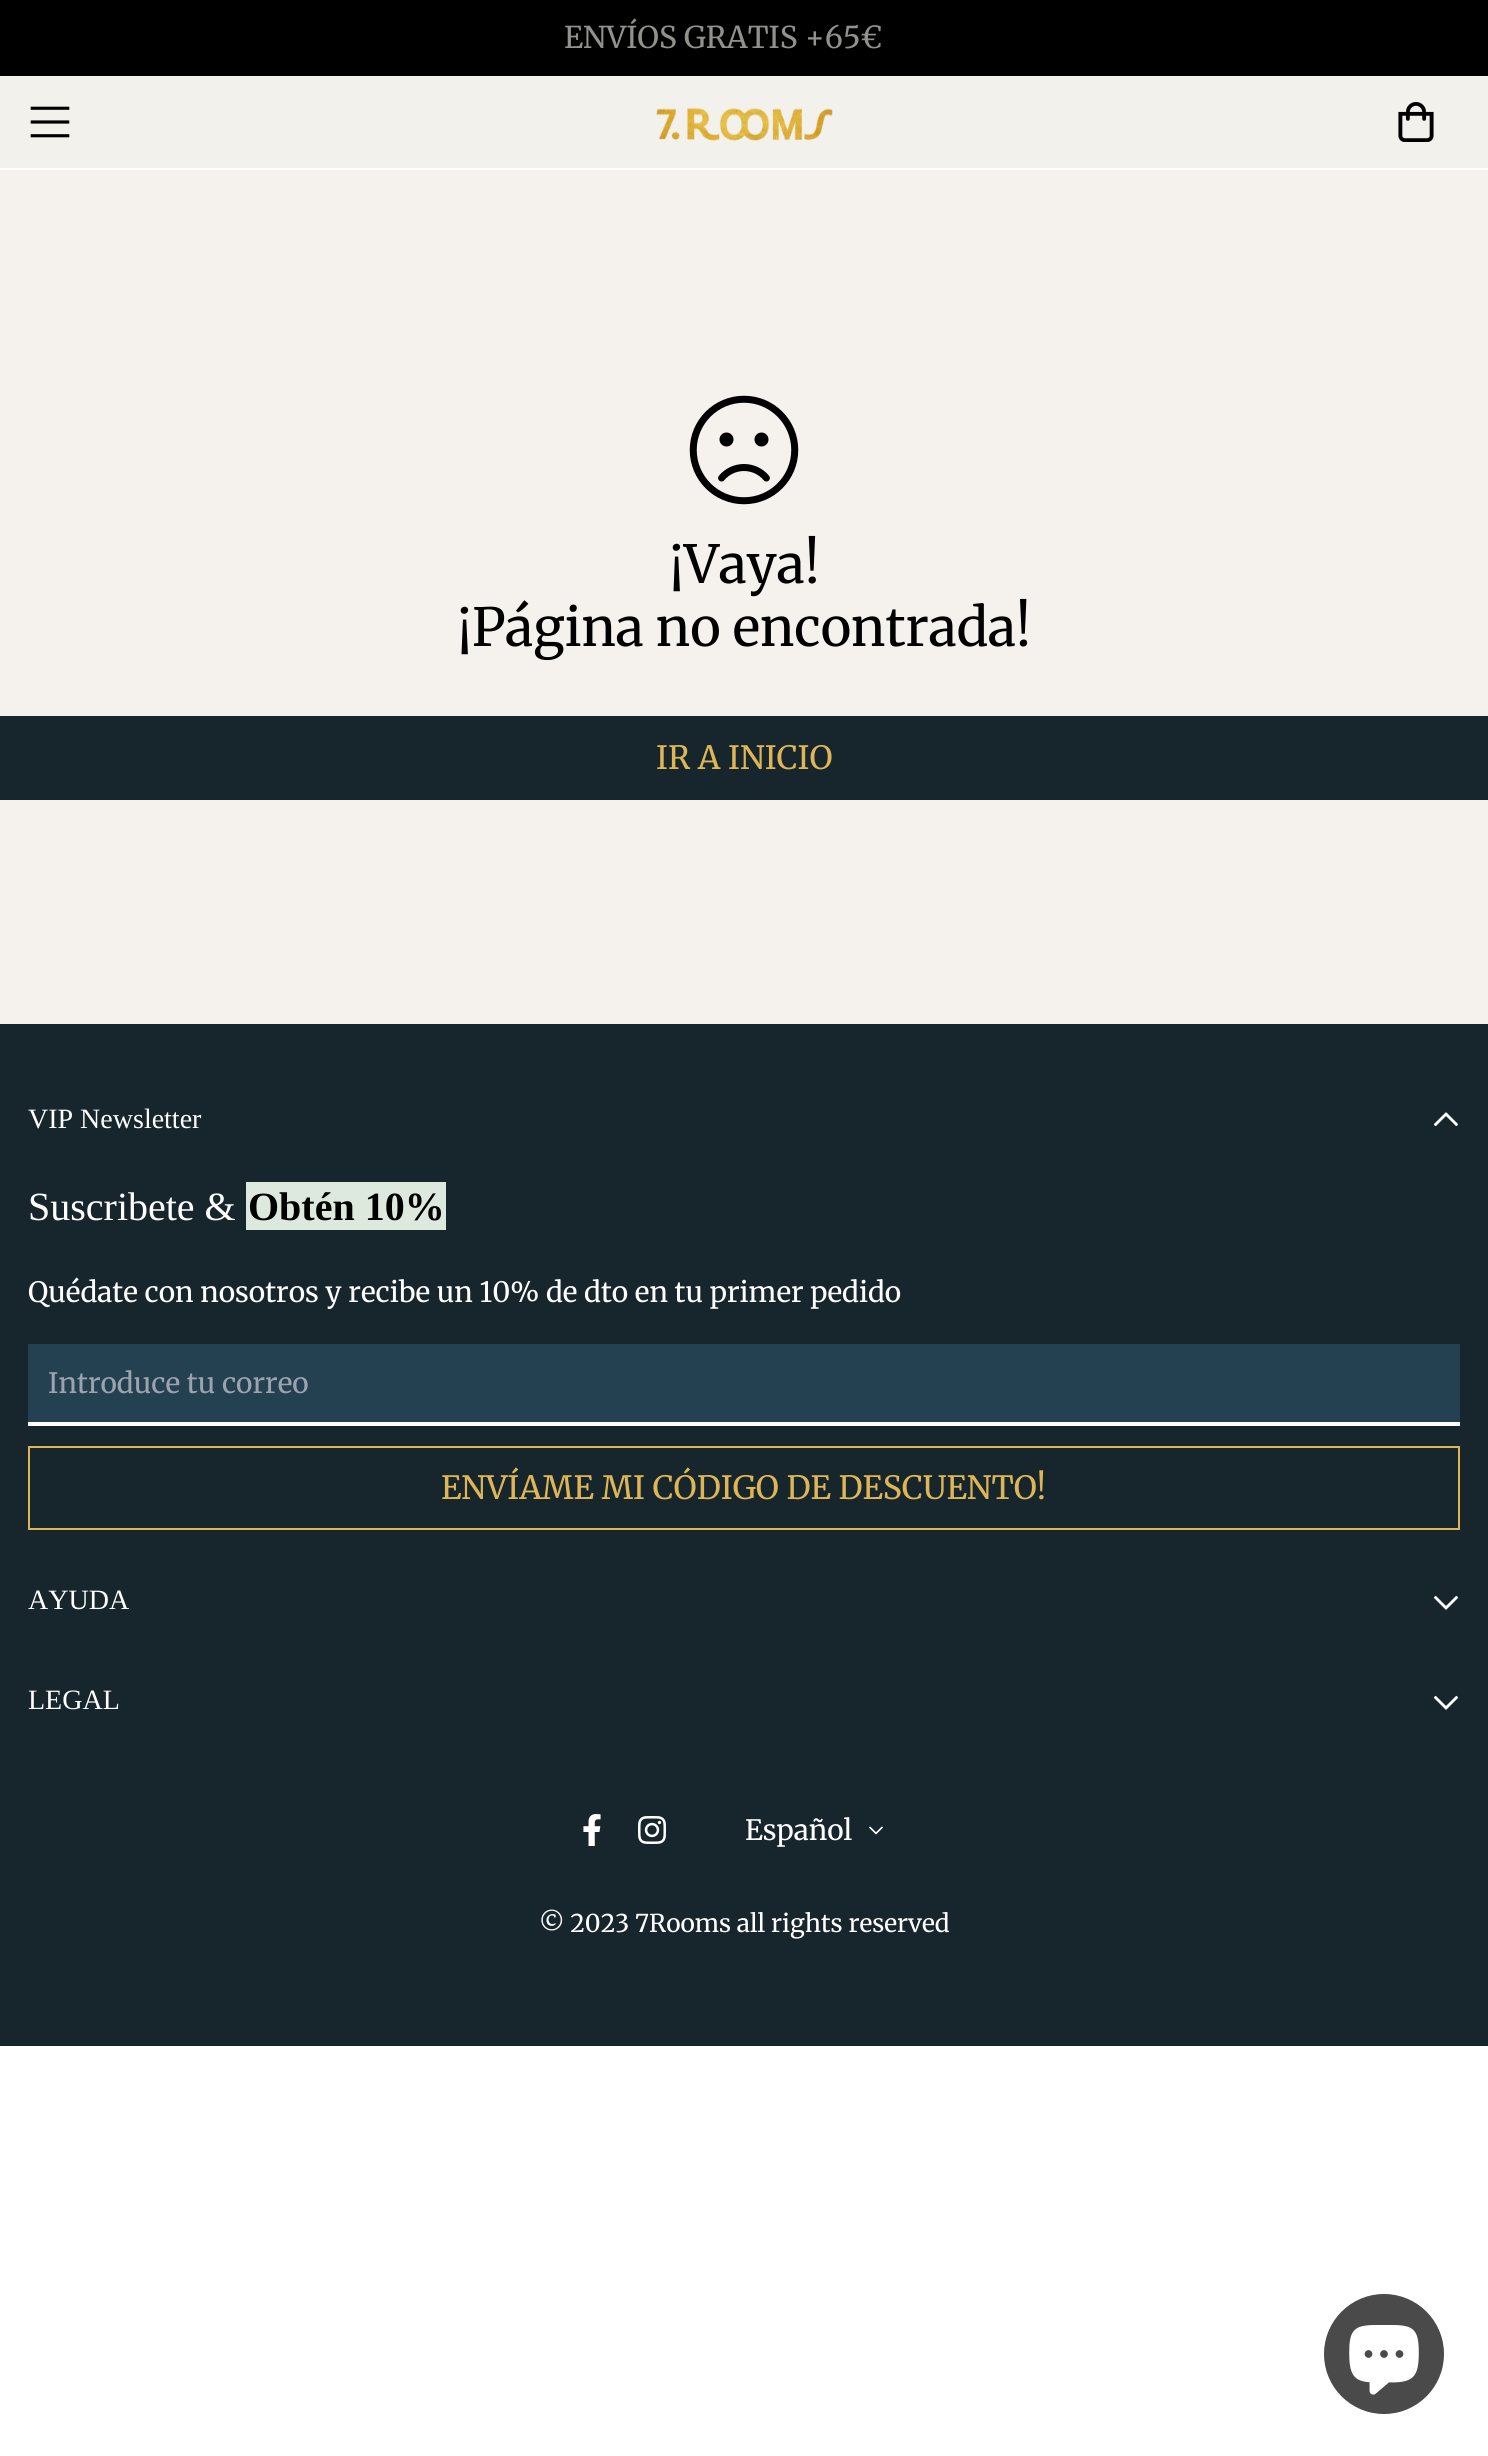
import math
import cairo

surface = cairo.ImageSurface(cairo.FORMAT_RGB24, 1488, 2456)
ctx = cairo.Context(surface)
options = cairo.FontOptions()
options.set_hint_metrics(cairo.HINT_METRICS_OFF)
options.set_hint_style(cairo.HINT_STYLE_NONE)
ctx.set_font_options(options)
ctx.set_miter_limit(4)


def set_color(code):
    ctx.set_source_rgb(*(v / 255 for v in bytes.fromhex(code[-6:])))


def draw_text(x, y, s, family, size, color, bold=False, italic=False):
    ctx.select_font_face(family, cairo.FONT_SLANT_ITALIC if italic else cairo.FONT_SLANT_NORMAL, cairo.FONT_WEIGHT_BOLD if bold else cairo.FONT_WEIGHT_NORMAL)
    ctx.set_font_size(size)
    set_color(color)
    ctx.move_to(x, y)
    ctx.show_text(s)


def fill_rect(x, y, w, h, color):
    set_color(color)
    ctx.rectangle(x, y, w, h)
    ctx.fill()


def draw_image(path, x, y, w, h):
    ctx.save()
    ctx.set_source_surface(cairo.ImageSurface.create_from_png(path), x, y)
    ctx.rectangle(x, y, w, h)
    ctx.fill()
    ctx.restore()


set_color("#ffffff")
ctx.paint()
fill_rect(0, 0, 1488, 76, "#000000")
draw_text(564, 48, "ENVÍOS GRATIS +65€", "Merriweather", 30, "#91918e")
fill_rect(0, 76, 1488, 92, "#f2f1ec")
draw_image("assets/img1.png", 30, 106, 40, 32)
draw_image("assets/img2.png", 656, 108, 177, 33)
draw_image("assets/img3.png", 1398, 102, 36, 40)
fill_rect(0, 170, 1488, 854, "#f5f1ed")
draw_image("assets/img4.png", 689, 395, 110, 110)
draw_text(669, 583, "¡Vaya!", "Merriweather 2", 52.5, "#000000")
draw_text(457, 646, "¡Página no encontrada!", "Merriweather 2", 52.5, "#000000")
fill_rect(0, 716, 1488, 84, "#17262d")
draw_text(656, 769, "IR A INICIO", "Merriweather", 32, "#deb655")
fill_rect(0, 1024, 1488, 1022, "#17262d")
draw_text(28, 1128, "VIP Newsletter", "Liberation Serif", 28, "#ffffff")
draw_image("assets/img5.png", 1433, 1112, 26, 15)
draw_text(28, 1220, "Suscribete &", "Liberation Serif", 40, "#ffffff")
fill_rect(246, 1182, 200, 48, "#dee9de")
draw_text(248, 1220, "Obtén 10%", "Liberation Serif", 40, "#000000", bold=True)
draw_text(28, 1302, "Quédate con nosotros y recibe un 10% de dto en tu primer pedido", "Merriweather", 28, "#ffffff")
fill_rect(28, 1344, 1432, 78, "#244151")
fill_rect(28, 1422, 1432, 4, "#ffffff")
draw_text(48, 1393, "Introduce tu correo", "Merriweather", 28, "#9ca3af")
ctx.rectangle(29, 1447, 1430, 82)
set_color("#deb655")
ctx.stroke()
draw_text(441, 1499, "ENVÍAME MI CÓDIGO DE DESCUENTO!", "Merriweather", 32, "#deb655")
draw_text(28, 1609, "AYUDA", "Liberation Serif", 28, "#ffffff")
draw_image("assets/img6.png", 1433, 1595, 26, 15)
draw_text(28, 1709, "LEGAL", "Liberation Serif", 28, "#ffffff")
draw_image("assets/img6.png", 1433, 1695, 26, 15)
draw_image("assets/img7.png", 583, 1814, 18, 32)
draw_image("assets/img8.png", 638, 1816, 28, 28)
draw_text(745, 1840, "Español", "Merriweather", 28, "#ffffff")
draw_image("assets/img9.png", 869, 1826, 14, 9)
draw_text(539, 1932, "© 2023 7Rooms all rights reserved", "Merriweather", 24.5, "#ffffff")
set_color("#4a4a4a")
ctx.new_path()
ctx.arc(1384, 2354, 60, 0, 2 * math.pi)
ctx.fill()
draw_image("assets/img10.png", 1349, 2325, 70, 70)
surface.write_to_png("output.png")
